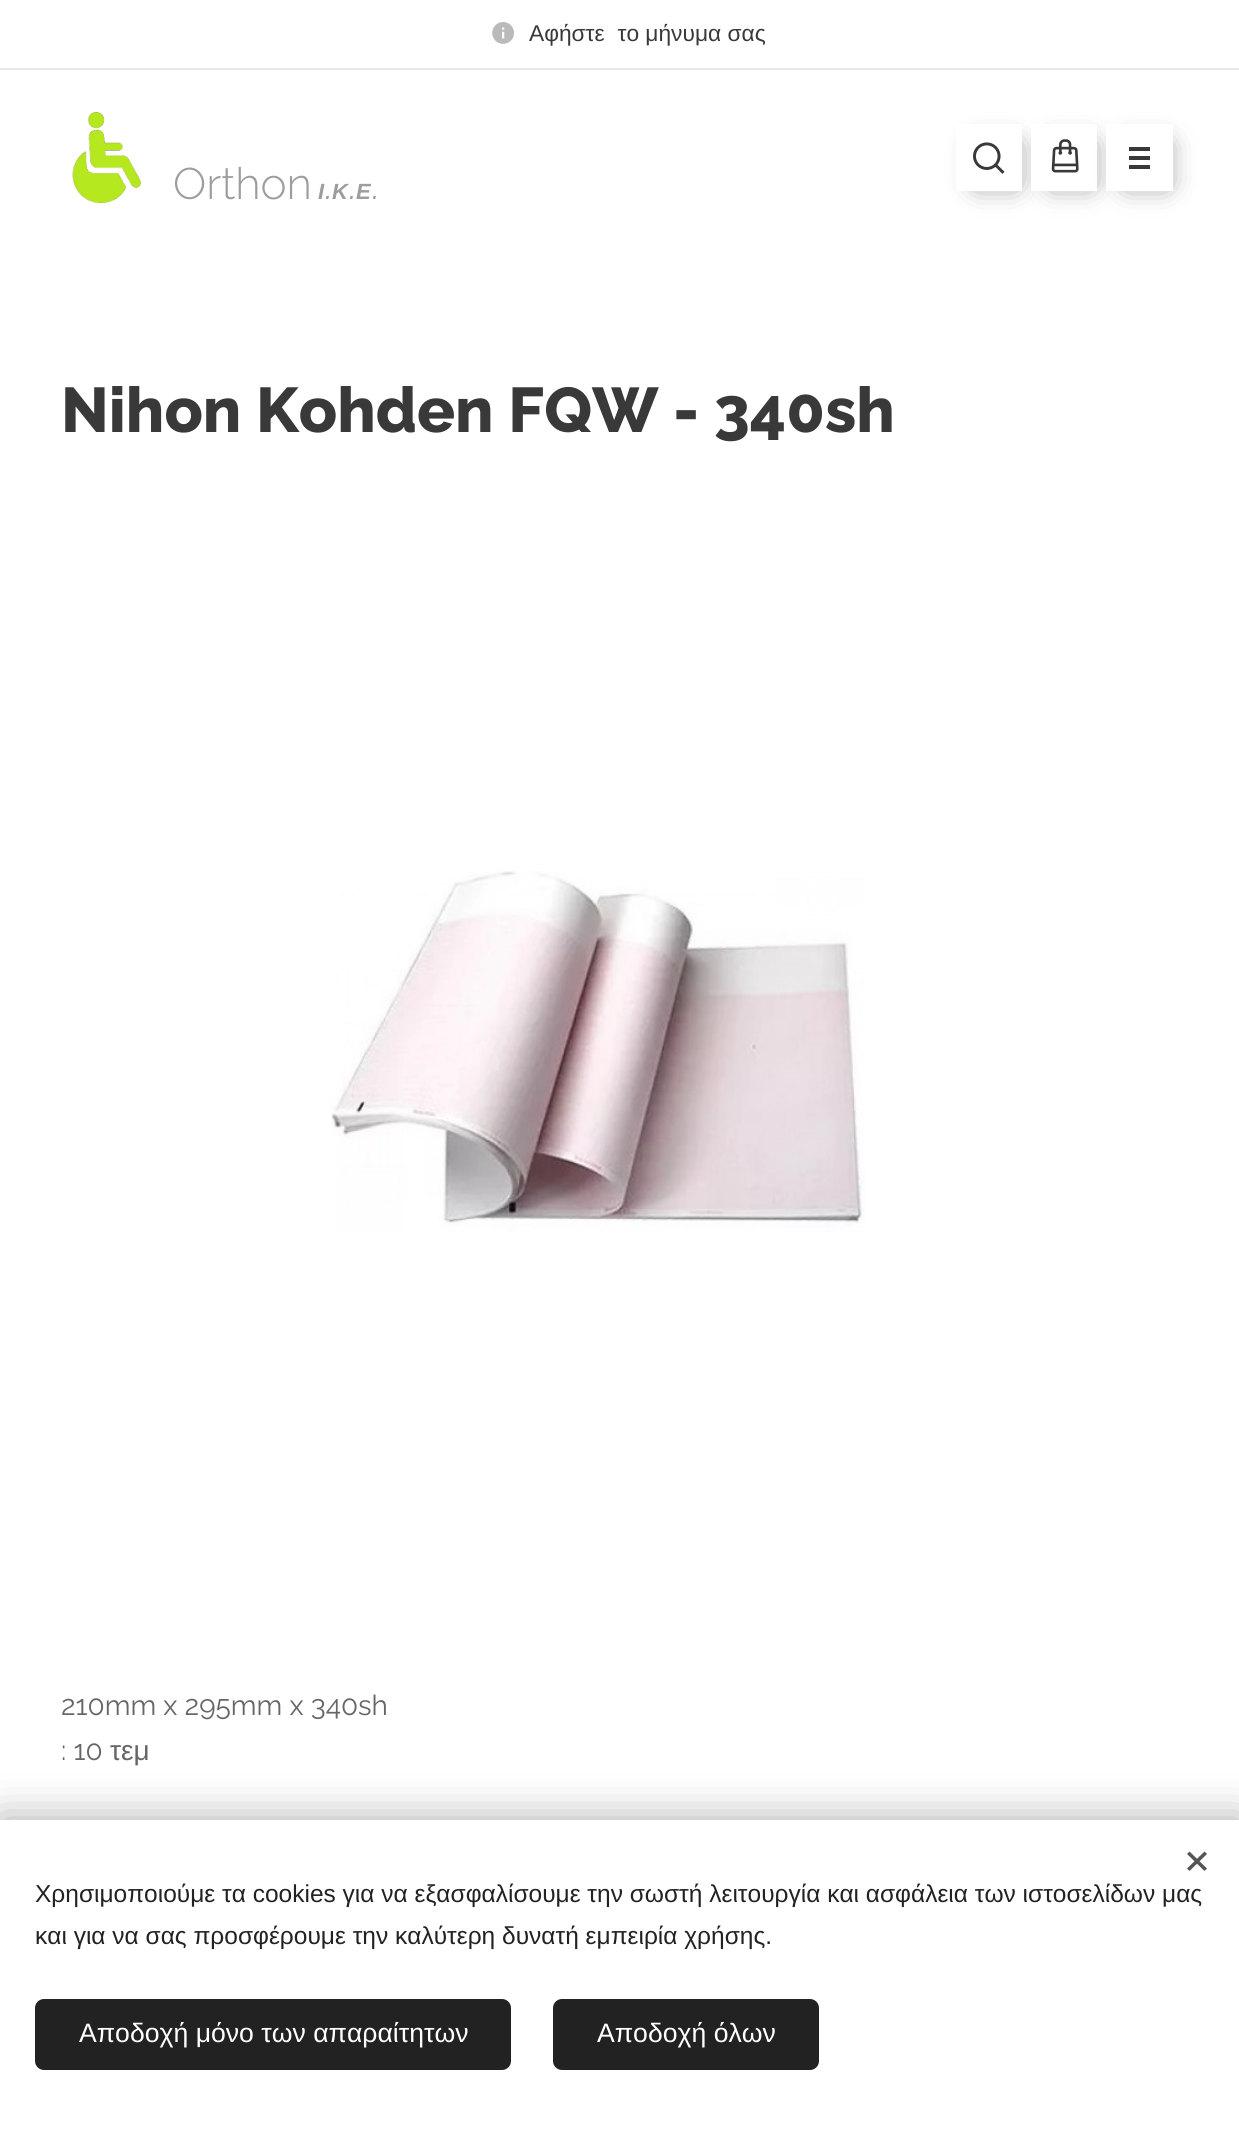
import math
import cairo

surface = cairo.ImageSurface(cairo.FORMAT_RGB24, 1239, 2129)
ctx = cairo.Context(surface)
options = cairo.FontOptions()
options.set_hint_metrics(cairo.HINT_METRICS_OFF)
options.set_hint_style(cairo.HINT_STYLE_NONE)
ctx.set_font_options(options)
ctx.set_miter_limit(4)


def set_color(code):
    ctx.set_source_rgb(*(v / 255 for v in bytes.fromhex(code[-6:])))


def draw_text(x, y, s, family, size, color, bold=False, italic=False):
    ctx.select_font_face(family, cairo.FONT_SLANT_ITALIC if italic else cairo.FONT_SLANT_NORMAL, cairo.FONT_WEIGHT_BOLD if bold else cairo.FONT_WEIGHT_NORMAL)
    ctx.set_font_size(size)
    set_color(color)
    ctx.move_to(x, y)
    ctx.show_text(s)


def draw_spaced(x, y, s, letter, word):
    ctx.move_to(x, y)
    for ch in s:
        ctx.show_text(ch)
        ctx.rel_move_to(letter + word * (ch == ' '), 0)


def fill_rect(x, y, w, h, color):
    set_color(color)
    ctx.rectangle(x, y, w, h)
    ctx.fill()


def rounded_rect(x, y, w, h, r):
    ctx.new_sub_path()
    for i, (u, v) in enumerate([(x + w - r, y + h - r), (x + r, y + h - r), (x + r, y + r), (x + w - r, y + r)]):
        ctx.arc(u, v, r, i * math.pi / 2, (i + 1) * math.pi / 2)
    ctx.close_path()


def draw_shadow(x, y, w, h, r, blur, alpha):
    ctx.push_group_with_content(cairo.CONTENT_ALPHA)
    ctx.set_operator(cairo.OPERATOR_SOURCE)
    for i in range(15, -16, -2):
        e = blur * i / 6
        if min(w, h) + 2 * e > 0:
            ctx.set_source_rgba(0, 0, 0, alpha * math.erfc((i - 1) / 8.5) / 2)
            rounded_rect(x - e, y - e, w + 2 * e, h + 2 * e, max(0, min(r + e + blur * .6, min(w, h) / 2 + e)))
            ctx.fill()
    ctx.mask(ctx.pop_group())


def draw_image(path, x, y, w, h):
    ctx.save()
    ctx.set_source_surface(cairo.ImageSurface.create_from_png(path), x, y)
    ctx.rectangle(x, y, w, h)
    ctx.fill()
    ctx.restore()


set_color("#ffffff")
ctx.paint()
draw_image("assets/img1.png", 492, 22, 22, 22)
draw_text(529, 41, "Αφήστε  το μήνυμα σας", "Liberation Sans", 22.75, "#393939")
fill_rect(0, 68, 1239, 2, "#e8e8e8")
draw_image("assets/img2.png", 72, 112, 70, 91)
draw_text(173, 199, "Orthon", "Raleway Light", 44, "#9d9d9d")
ctx.select_font_face("Liberation Sans", cairo.FONT_SLANT_ITALIC, cairo.FONT_WEIGHT_BOLD)
ctx.set_font_size(22)
draw_spaced(318, 199, "Ι", 2, 0)
ctx.select_font_face("Raleway", cairo.FONT_SLANT_ITALIC, cairo.FONT_WEIGHT_BOLD)
draw_spaced(326, 199, ".", 2, 0)
ctx.select_font_face("Liberation Sans", cairo.FONT_SLANT_ITALIC, cairo.FONT_WEIGHT_BOLD)
draw_spaced(332, 199, "Κ", 2, 0)
ctx.select_font_face("Raleway", cairo.FONT_SLANT_ITALIC, cairo.FONT_WEIGHT_BOLD)
draw_spaced(350, 199, ".", 2, 0)
ctx.select_font_face("Liberation Sans", cairo.FONT_SLANT_ITALIC, cairo.FONT_WEIGHT_BOLD)
draw_spaced(356, 199, "Ε", 2, 0)
ctx.select_font_face("Raleway", cairo.FONT_SLANT_ITALIC, cairo.FONT_WEIGHT_BOLD)
draw_spaced(373, 199, ".", 2, 0)
set_color("#000000")
draw_shadow(977, 145, 38, 39, 0, 14, 0.5)
fill_rect(956, 124, 66, 67, "#ffffff")
draw_image("assets/img3.png", 973, 142, 32, 32)
set_color("#000000")
draw_shadow(1052, 145, 38, 39, 0, 14, 0.5)
fill_rect(1031, 124, 66, 67, "#ffffff")
draw_image("assets/img4.png", 1051, 139, 28, 34)
set_color("#000000")
draw_shadow(1127, 145, 39, 39, 0, 14, 0.5)
fill_rect(1106, 124, 67, 67, "#ffffff")
fill_rect(1129, 156, 21, 4, "#393939")
fill_rect(1129, 147, 21, 4, "#393939")
fill_rect(1129, 165, 21, 4, "#393939")
draw_text(61, 432, "Nihon Kohden FQW - 340sh", "Raleway ExtraBold", 63, "#393939")
draw_image("assets/img5.png", 331, 871, 534, 361)
draw_text(61, 1715, "210mm x 295mm x 340sh", "Raleway", 28, "#666666")
draw_text(61, 1760, ": 10", "Raleway", 28, "#666666")
draw_text(110, 1760, "τεμ", "Liberation Sans", 28, "#666666")
set_color("#000000")
draw_shadow(0, 1820, 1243, 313, 0, 22, 0.33)
fill_rect(0, 1820, 1239, 309, "#ffffff")
set_color("#555555")
ctx.new_path()
ctx.move_to(1187, 1868.5)
ctx.line_to(1204.5, 1851.5)
ctx.line_to(1207, 1854)
ctx.line_to(1189.5, 1871)
ctx.close_path()
ctx.fill()
ctx.new_path()
ctx.move_to(1189.5, 1851.5)
ctx.line_to(1207, 1868.5)
ctx.line_to(1204.5, 1871)
ctx.line_to(1187, 1854)
ctx.close_path()
ctx.fill()
draw_text(35, 1902, "Χρησιμοποιούμε τα cookies για να εξασφαλίσουμε την σωστή λειτουργία και ασφάλεια των ιστοσελίδων μας", "Liberation Sans", 24.5, "#222222")
draw_text(35, 1944, "και για να σας προσφέρουμε την καλύτερη δυνατή εμπειρία χρήσης.", "Liberation Sans", 24.5, "#222222")
rounded_rect(35, 1999, 476, 71, 9)
ctx.fill()
draw_text(79, 2042, "Αποδοχή μόνο των απαραίτητων", "Liberation Sans", 26.6, "#ffffff")
set_color("#222222")
rounded_rect(553, 1999, 266, 71, 9)
ctx.fill()
draw_text(597, 2042, "Αποδοχή όλων", "Liberation Sans", 26.6, "#ffffff")
surface.write_to_png("output.png")
